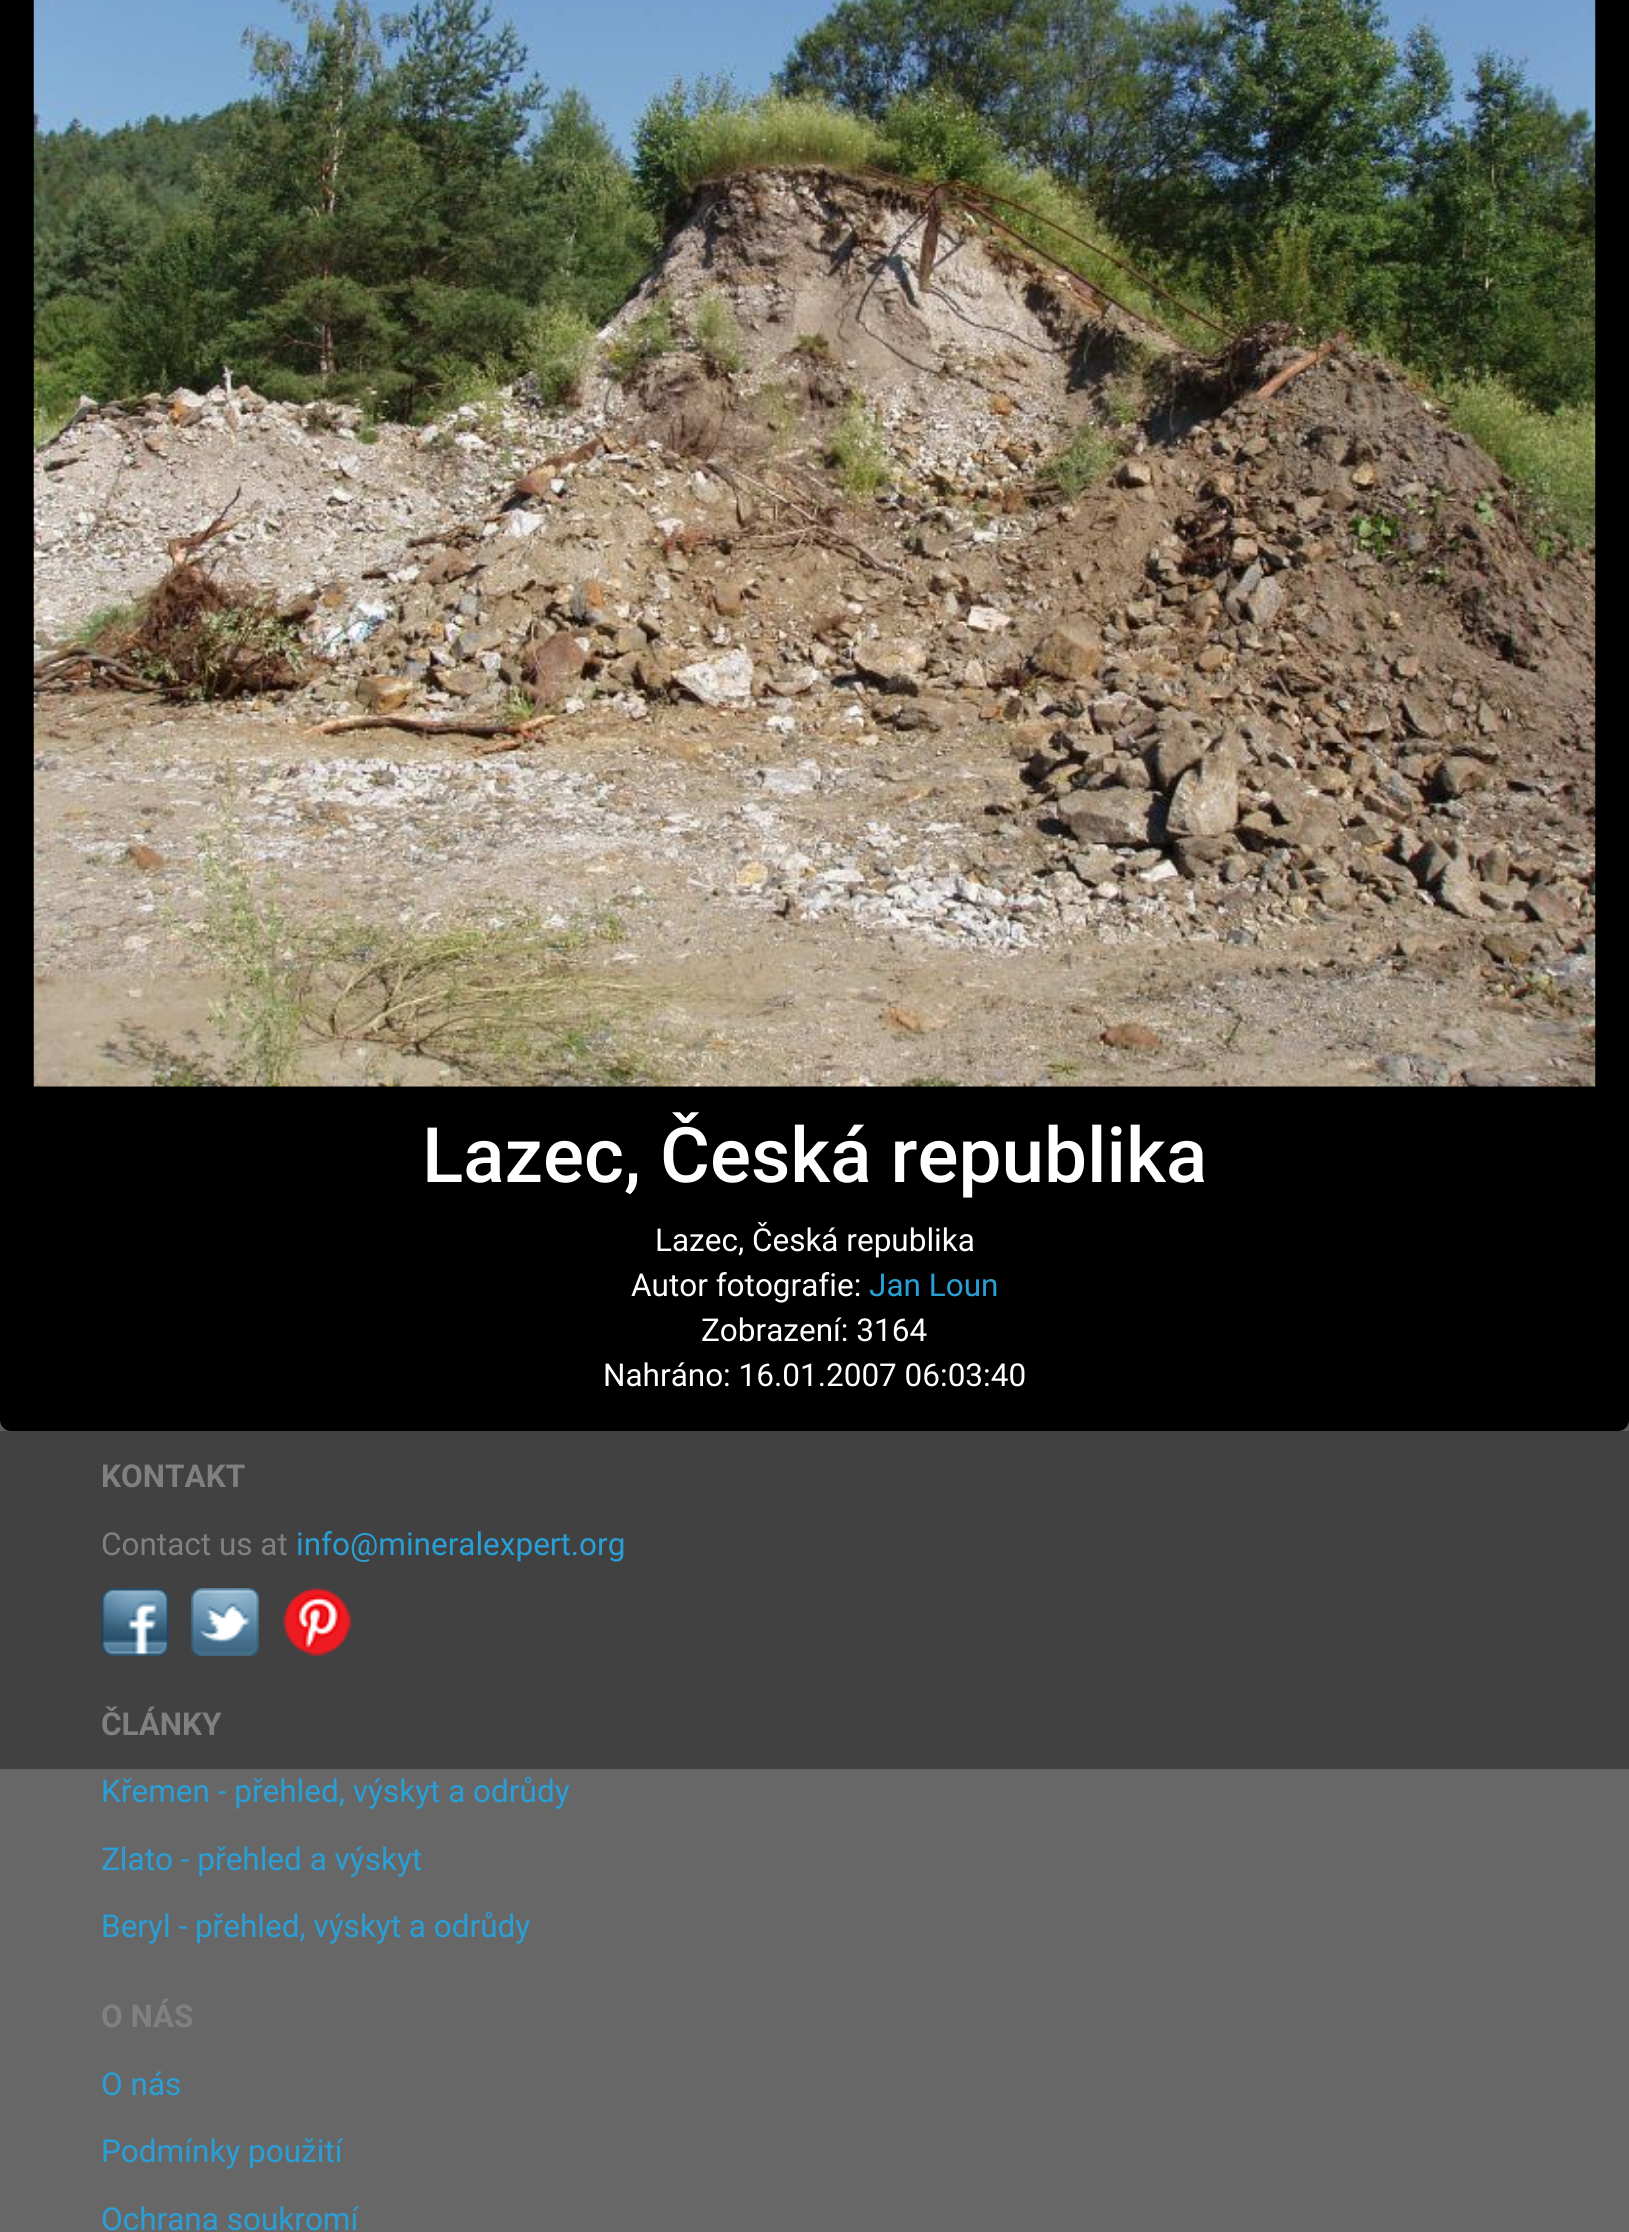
import math
import cairo

surface = cairo.ImageSurface(cairo.FORMAT_RGB24, 1629, 2232)
ctx = cairo.Context(surface)
options = cairo.FontOptions()
options.set_hint_metrics(cairo.HINT_METRICS_OFF)
options.set_hint_style(cairo.HINT_STYLE_NONE)
ctx.set_font_options(options)
ctx.set_miter_limit(4)


def set_color(code):
    ctx.set_source_rgb(*(v / 255 for v in bytes.fromhex(code[-6:])))


def draw_text(x, y, s, family, size, color, bold=False, italic=False):
    ctx.select_font_face(family, cairo.FONT_SLANT_ITALIC if italic else cairo.FONT_SLANT_NORMAL, cairo.FONT_WEIGHT_BOLD if bold else cairo.FONT_WEIGHT_NORMAL)
    ctx.set_font_size(size)
    set_color(color)
    ctx.move_to(x, y)
    ctx.show_text(s)


def fill_rect(x, y, w, h, color):
    set_color(color)
    ctx.rectangle(x, y, w, h)
    ctx.fill()


def rounded_rect(x, y, w, h, r):
    ctx.new_sub_path()
    for i, (u, v) in enumerate([(x + w - r, y + h - r), (x + r, y + h - r), (x + r, y + r), (x + w - r, y + r)]):
        ctx.arc(u, v, r, i * math.pi / 2, (i + 1) * math.pi / 2)
    ctx.close_path()


def draw_image(path, x, y, w, h):
    ctx.save()
    ctx.set_source_surface(cairo.ImageSurface.create_from_png(path), x, y)
    ctx.rectangle(x, y, w, h)
    ctx.fill()
    ctx.restore()


set_color("#676767")
ctx.paint()
draw_image("assets/img1.png", 0, 1420, 1629, 11)
set_color("#000000")
rounded_rect(0, -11, 1629, 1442, 11)
ctx.fill()
draw_image("assets/img2.png", 33, 0, 1563, 1087)
draw_text(422, 1182, "Lazec, Česká republika", "Roboto Medium", 76.5, "#ffffff")
draw_text(655, 1251, "Lazec, Česká republika", "Roboto", 31.5, "#ffffff")
draw_text(631, 1296, "Autor fotografie:", "Roboto", 31.5, "#ffffff")
draw_text(869, 1296, "Jan Loun", "Roboto", 31.5, "#2a9fd6")
draw_text(701, 1341, "Zobrazení: 3164", "Roboto", 31.5, "#ffffff")
draw_text(603, 1386, "Nahráno: 16.01.2007 06:03:40", "Roboto", 31.5, "#ffffff")
fill_rect(0, 1431, 1629, 338, "#414141")
draw_text(101, 1487, "KONTAKT", "Roboto", 31.5, "#808080", bold=True)
draw_text(101, 1555, "Contact us at", "Roboto", 31.5, "#808080")
draw_text(296, 1555, "info@mineralexpert.org", "Roboto", 31.5, "#2a9fd6")
draw_image("assets/img3.png", 101, 1588, 68, 68)
draw_image("assets/img4.png", 191, 1588, 68, 68)
draw_image("assets/img5.png", 283, 1588, 68, 68)
draw_text(101, 1735, "ČLÁNKY", "Roboto", 31.5, "#808080", bold=True)
draw_text(101, 1802, "Křemen - přehled, výskyt a odrůdy", "Roboto", 31.5, "#2a9fd6")
draw_text(101, 1870, "Zlato - přehled a výskyt", "Roboto", 31.5, "#2a9fd6")
draw_text(101, 1937, "Beryl - přehled, výskyt a odrůdy", "Roboto", 31.5, "#2a9fd6")
draw_text(101, 2027, "O NÁS", "Roboto", 31.5, "#808080", bold=True)
draw_text(101, 2095, "O nás", "Roboto", 31.5, "#2a9fd6")
draw_text(101, 2162, "Podmínky použití", "Roboto", 31.5, "#2a9fd6")
draw_text(101, 2230, "Ochrana soukromí", "Roboto", 31.5, "#2a9fd6")
surface.write_to_png("output.png")
